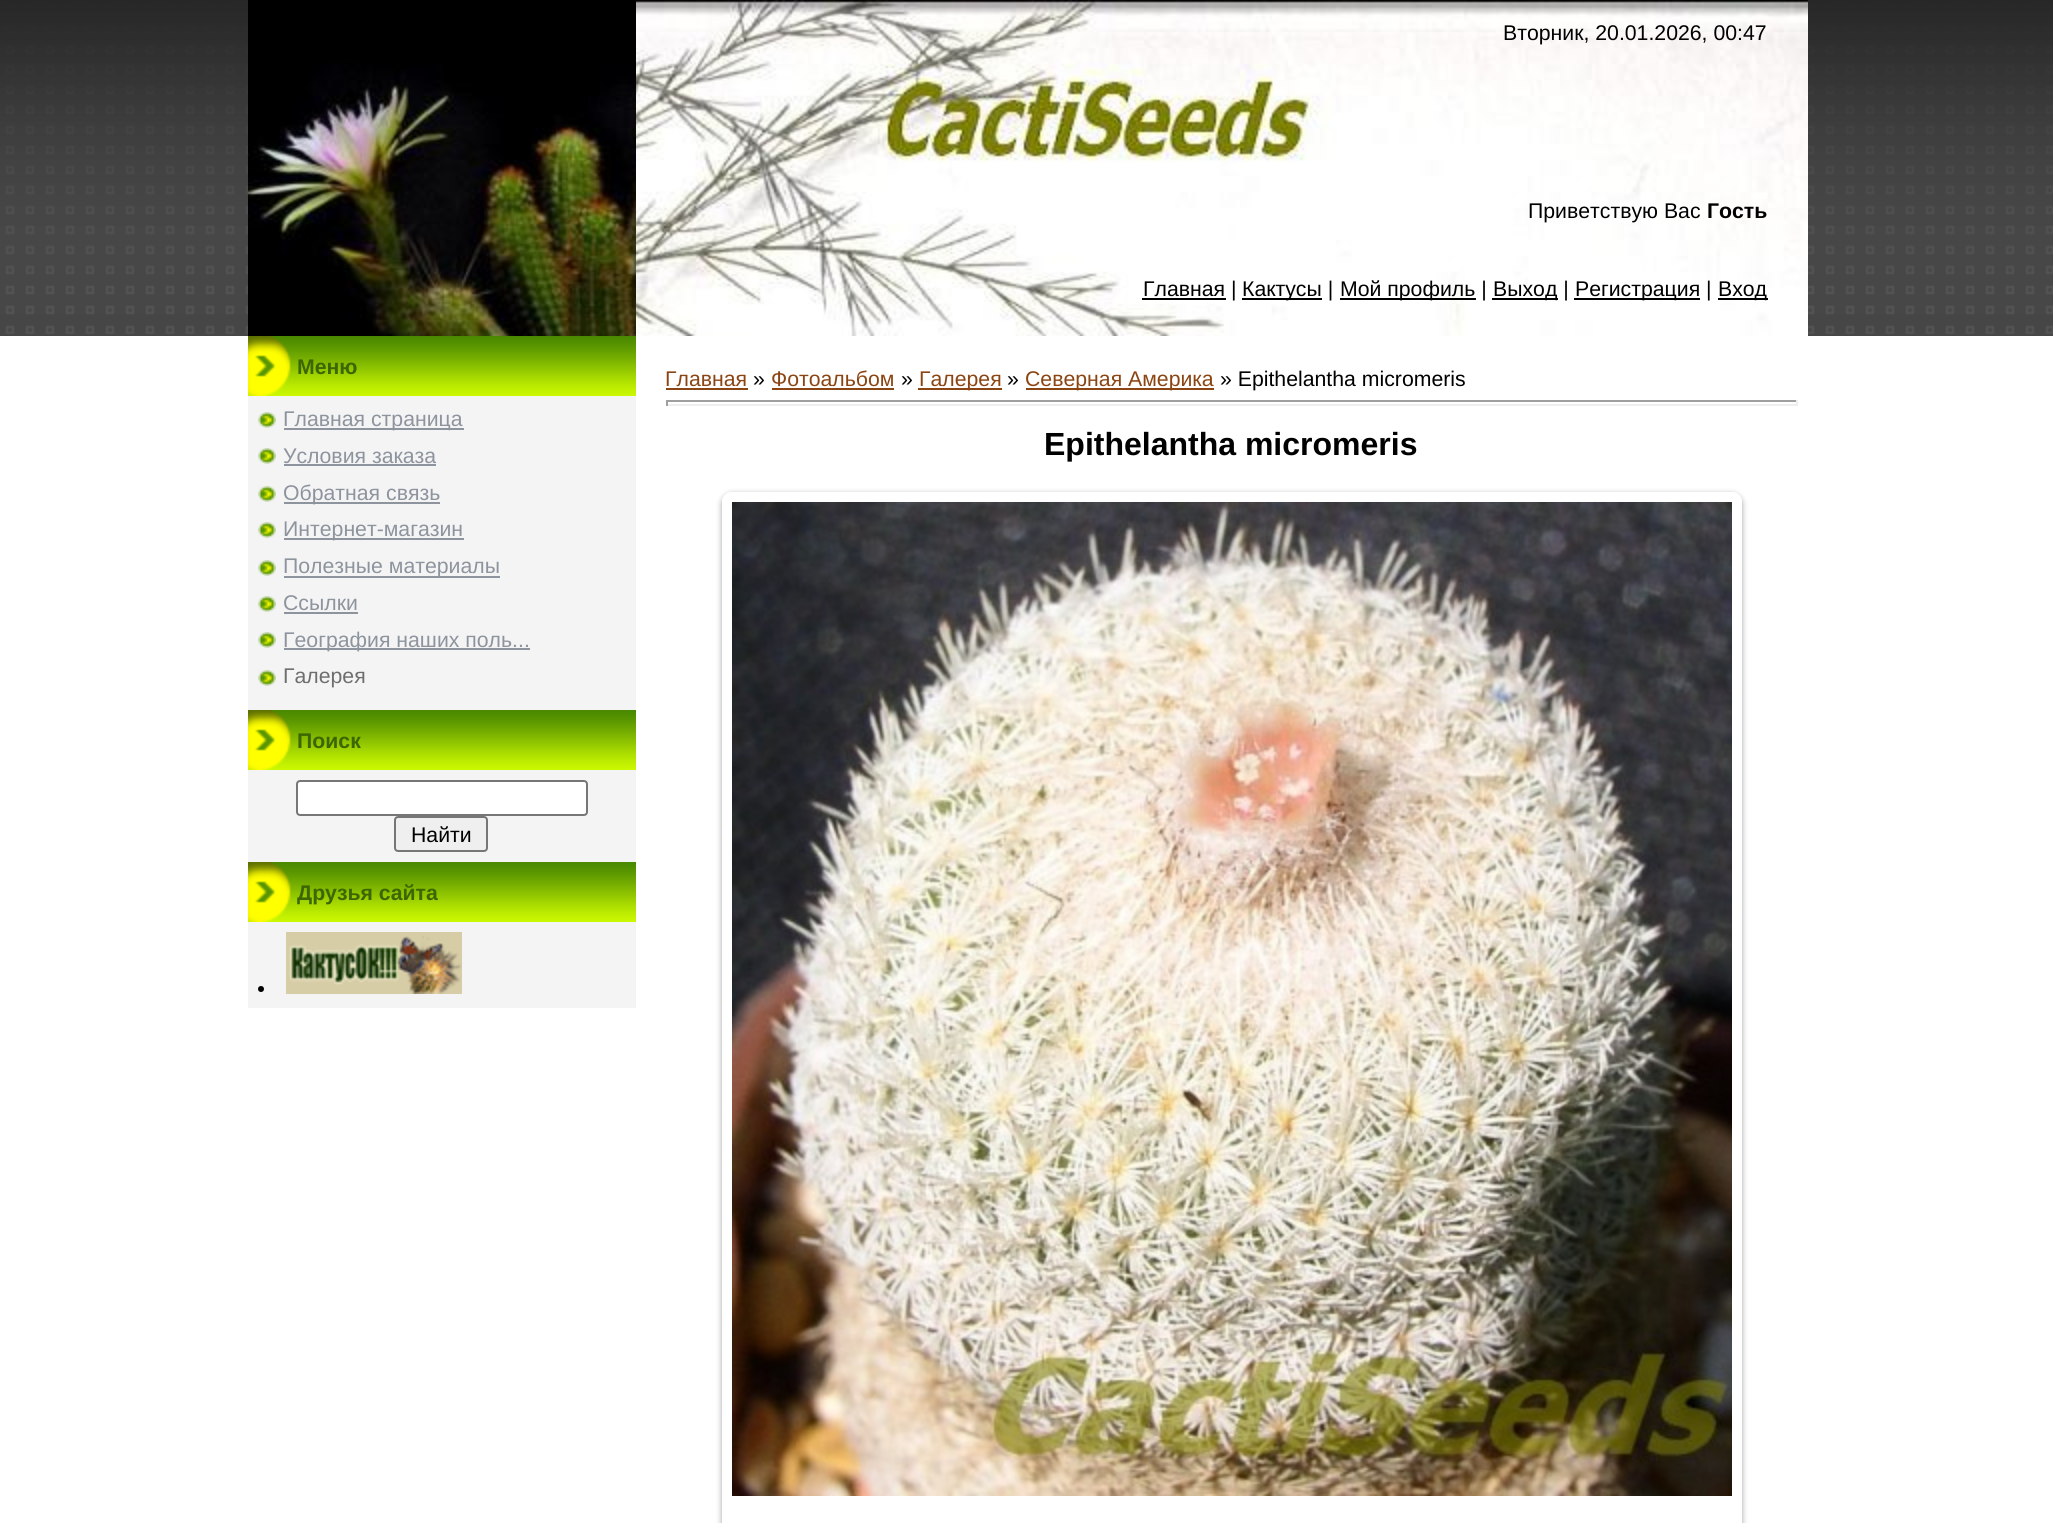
import math
import cairo

surface = cairo.ImageSurface(cairo.FORMAT_RGB24, 2053, 1523)
ctx = cairo.Context(surface)
options = cairo.FontOptions()
options.set_hint_metrics(cairo.HINT_METRICS_OFF)
options.set_hint_style(cairo.HINT_STYLE_NONE)
ctx.set_font_options(options)
ctx.set_miter_limit(4)


def set_color(code):
    ctx.set_source_rgb(*(v / 255 for v in bytes.fromhex(code[-6:])))


def draw_text(x, y, s, family, size, color, bold=False, italic=False):
    ctx.select_font_face(family, cairo.FONT_SLANT_ITALIC if italic else cairo.FONT_SLANT_NORMAL, cairo.FONT_WEIGHT_BOLD if bold else cairo.FONT_WEIGHT_NORMAL)
    ctx.set_font_size(size)
    set_color(color)
    ctx.move_to(x, y)
    ctx.show_text(s)


def fill_rect(x, y, w, h, color):
    set_color(color)
    ctx.rectangle(x, y, w, h)
    ctx.fill()


def rounded_rect(x, y, w, h, r):
    ctx.new_sub_path()
    for i, (u, v) in enumerate([(x + w - r, y + h - r), (x + r, y + h - r), (x + r, y + r), (x + w - r, y + r)]):
        ctx.arc(u, v, r, i * math.pi / 2, (i + 1) * math.pi / 2)
    ctx.close_path()


def draw_shadow(x, y, w, h, r, blur, alpha):
    ctx.push_group_with_content(cairo.CONTENT_ALPHA)
    ctx.set_operator(cairo.OPERATOR_SOURCE)
    for i in range(15, -16, -2):
        e = blur * i / 6
        if min(w, h) + 2 * e > 0:
            ctx.set_source_rgba(0, 0, 0, alpha * math.erfc((i - 1) / 8.5) / 2)
            rounded_rect(x - e, y - e, w + 2 * e, h + 2 * e, max(0, min(r + e + blur * .6, min(w, h) / 2 + e)))
            ctx.fill()
    ctx.mask(ctx.pop_group())


def draw_image(path, x, y, w, h):
    ctx.save()
    ctx.set_source_surface(cairo.ImageSurface.create_from_png(path), x, y)
    ctx.rectangle(x, y, w, h)
    ctx.fill()
    ctx.restore()


set_color("#ffffff")
ctx.paint()
fill_rect(0, 334, 2053, 2, "#464646")
draw_image("assets/img1.png", 0, 0, 2053, 334)
draw_image("assets/img2.png", 636, 0, 1172, 336)
draw_image("assets/img3.png", 248, 0, 388, 336)
draw_text(1503, 40, "Вторник, 20.01.2026, 00:47", "Liberation Sans", 21.25, "#000000")
draw_text(1528, 218, "Приветствую Вас", "Liberation Sans", 21.25, "#000000")
draw_text(1707, 218, "Гость", "Liberation Sans", 21.25, "#000000", bold=True)
fill_rect(1142, 298, 84, 2, "#000000")
draw_text(1143, 296, "Главная |", "Liberation Sans", 21.25, "#000000")
fill_rect(1242, 298, 80, 2, "#000000")
draw_text(1242, 296, "Кактусы |", "Liberation Sans", 21.25, "#000000")
fill_rect(1340, 298, 136, 2, "#000000")
draw_text(1340, 296, "Мой профиль |", "Liberation Sans", 21.25, "#000000")
fill_rect(1492, 298, 66, 2, "#000000")
draw_text(1493, 296, "Выход |", "Liberation Sans", 21.25, "#000000")
fill_rect(1574, 298, 126, 2, "#000000")
draw_text(1575, 296, "Регистрация |", "Liberation Sans", 21.25, "#000000")
fill_rect(1718, 298, 50, 2, "#000000")
draw_text(1718, 296, "Вход", "Liberation Sans", 21.25, "#000000")
draw_image("assets/img4.png", 248, 336, 388, 60)
draw_text(297, 374, "Меню", "Liberation Sans", 21.25, "#3c6600", bold=True)
fill_rect(248, 396, 388, 314, "#f4f4f4")
draw_image("assets/img5.png", 258, 412, 18, 16)
fill_rect(284, 428, 180, 2, "#8d949e")
draw_text(283, 426, "Главная страница", "Liberation Sans", 21.25, "#8d949e")
draw_image("assets/img5.png", 258, 448, 18, 16)
draw_text(283, 463, "Условия заказа", "Liberation Sans", 21.25, "#8d949e")
fill_rect(284, 464, 152, 2, "#8d949e")
draw_image("assets/img5.png", 258, 486, 18, 16)
fill_rect(284, 502, 156, 2, "#8d949e")
draw_text(283, 500, "Обратная связь", "Liberation Sans", 21.25, "#8d949e")
draw_image("assets/img5.png", 258, 522, 18, 16)
fill_rect(284, 538, 180, 2, "#8d949e")
draw_text(283, 536, "Интернет-магазин", "Liberation Sans", 21.25, "#8d949e")
draw_image("assets/img5.png", 258, 560, 18, 16)
fill_rect(284, 576, 216, 2, "#8d949e")
draw_text(283, 573, "Полезные материалы", "Liberation Sans", 21.25, "#8d949e")
draw_image("assets/img5.png", 258, 596, 18, 16)
draw_text(283, 610, "Ссылки", "Liberation Sans", 21.25, "#8d949e")
fill_rect(284, 612, 74, 2, "#8d949e")
draw_image("assets/img5.png", 258, 632, 18, 16)
fill_rect(284, 648, 246, 2, "#8d949e")
draw_text(283, 647, "География наших поль...", "Liberation Sans", 21.25, "#8d949e")
draw_image("assets/img5.png", 258, 670, 18, 16)
draw_text(283, 683, "Галерея", "Liberation Sans", 21.25, "#6e6e6e")
draw_image("assets/img4.png", 248, 710, 388, 60)
draw_text(297, 748, "Поиск", "Liberation Sans", 21.25, "#3c6600", bold=True)
fill_rect(248, 770, 388, 92, "#f4f4f4")
set_color("#ffffff")
rounded_rect(297, 781, 290, 34, 3)
ctx.fill_preserve()
set_color("#767676")
ctx.stroke()
set_color("#efefef")
rounded_rect(395, 817, 92, 34, 3)
ctx.fill_preserve()
set_color("#767676")
ctx.stroke()
draw_text(411, 842, "Найти", "Liberation Sans", 21.25, "#000000")
draw_image("assets/img4.png", 248, 862, 388, 60)
draw_text(297, 900, "Друзья сайта", "Liberation Sans", 21.25, "#3c6600", bold=True)
fill_rect(248, 922, 388, 86, "#f4f4f4")
set_color("#000000")
ctx.new_path()
ctx.arc(261, 989, 3, 0, 2 * math.pi)
ctx.fill()
draw_image("assets/img6.png", 286, 932, 176, 62)
draw_text(665, 386, "Главная", "Liberation Sans", 21.25, "#8b4513")
fill_rect(666, 388, 82, 2, "#8b4513")
draw_text(753, 386, "»", "Liberation Sans", 21.25, "#000000")
draw_text(771, 386, "Фотоальбом", "Liberation Sans", 21.25, "#8b4513")
fill_rect(772, 388, 122, 2, "#8b4513")
draw_text(901, 386, "»", "Liberation Sans", 21.25, "#000000")
fill_rect(918, 388, 84, 2, "#8b4513")
draw_text(919, 386, "Галерея", "Liberation Sans", 21.25, "#8b4513")
draw_text(1007, 386, "»", "Liberation Sans", 21.25, "#000000")
fill_rect(1026, 388, 188, 2, "#8b4513")
draw_text(1025, 386, "Северная Америка", "Liberation Sans", 21.25, "#8b4513")
draw_text(1220, 386, "» Epithelantha micromeris", "Liberation Sans", 21.25, "#000000")
fill_rect(666, 400, 1132, 2, "#9f9f9f")
fill_rect(1796, 400, 2, 6, "#eeeeee")
fill_rect(666, 404, 1132, 2, "#eeeeee")
fill_rect(666, 400, 2, 6, "#9f9f9f")
draw_text(1044, 455, "Epithelantha micromeris", "Liberation Sans", 32, "#000000", bold=True)
ctx.save()
ctx.set_fill_rule(cairo.FILL_RULE_EVEN_ODD)
ctx.new_path()
ctx.move_to(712, 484)
ctx.line_to(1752, 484)
ctx.line_to(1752, 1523)
ctx.line_to(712, 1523)
ctx.close_path()
ctx.move_to(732, 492)
ctx.line_to(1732, 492)
ctx.curve_to(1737.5, 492, 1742, 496.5, 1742, 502)
ctx.line_to(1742, 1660)
ctx.curve_to(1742, 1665.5, 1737.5, 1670, 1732, 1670)
ctx.line_to(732, 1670)
ctx.curve_to(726.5, 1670, 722, 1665.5, 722, 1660)
ctx.line_to(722, 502)
ctx.curve_to(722, 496.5, 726.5, 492, 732, 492)
ctx.close_path()
ctx.clip()
set_color("#000000")
draw_shadow(722, 494, 1020, 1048, 10, 3, 0.37)
ctx.restore()
draw_image("assets/img7.png", 732, 502, 1000, 994)
surface.write_to_png("output.png")
